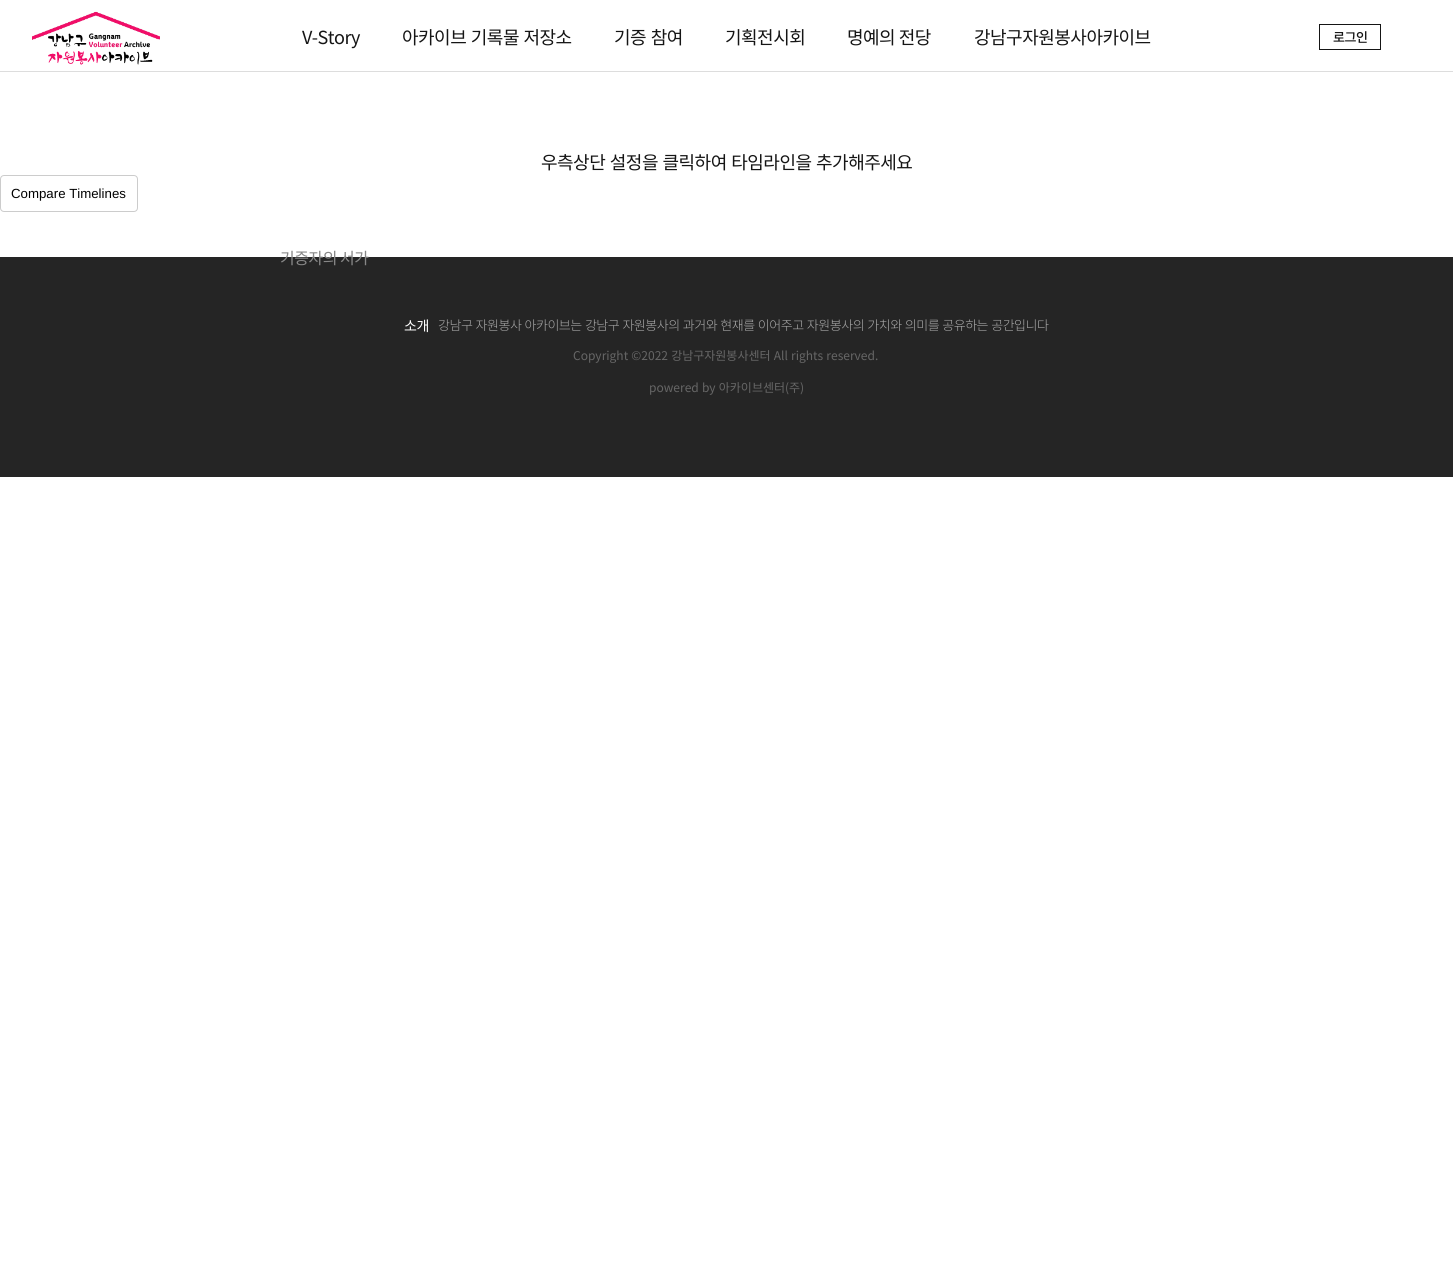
import math
import cairo

surface = cairo.ImageSurface(cairo.FORMAT_RGB24, 1453, 1267)
ctx = cairo.Context(surface)
options = cairo.FontOptions()
options.set_hint_metrics(cairo.HINT_METRICS_OFF)
options.set_hint_style(cairo.HINT_STYLE_NONE)
ctx.set_font_options(options)
ctx.set_miter_limit(4)


def set_color(code):
    ctx.set_source_rgb(*(v / 255 for v in bytes.fromhex(code[-6:])))


def draw_text(x, y, s, family, size, color, bold=False, italic=False):
    ctx.select_font_face(family, cairo.FONT_SLANT_ITALIC if italic else cairo.FONT_SLANT_NORMAL, cairo.FONT_WEIGHT_BOLD if bold else cairo.FONT_WEIGHT_NORMAL)
    ctx.set_font_size(size)
    set_color(color)
    ctx.move_to(x, y)
    ctx.show_text(s)


def draw_spaced(x, y, s, letter, word):
    ctx.move_to(x, y)
    for ch in s:
        ctx.show_text(ch)
        ctx.rel_move_to(letter + word * (ch == ' '), 0)


def fill_rect(x, y, w, h, color):
    set_color(color)
    ctx.rectangle(x, y, w, h)
    ctx.fill()


def rounded_rect(x, y, w, h, r):
    ctx.new_sub_path()
    for i, (u, v) in enumerate([(x + w - r, y + h - r), (x + r, y + h - r), (x + r, y + r), (x + w - r, y + r)]):
        ctx.arc(u, v, r, i * math.pi / 2, (i + 1) * math.pi / 2)
    ctx.close_path()


def draw_image(path, x, y, w, h):
    ctx.save()
    ctx.set_source_surface(cairo.ImageSurface.create_from_png(path), x, y)
    ctx.rectangle(x, y, w, h)
    ctx.fill()
    ctx.restore()


set_color("#ffffff")
ctx.paint()
fill_rect(0, 71, 1453, 1, "#dddddd")
draw_image("assets/img1.png", 32, 11, 128, 54)
ctx.select_font_face("Noto Sans KR")
ctx.set_font_size(18)
set_color("#151515")
draw_spaced(302, 44, "V-Story", -0.5, 0)
fill_rect(0, 257, 1453, 220, "#252525")
ctx.set_font_size(16)
set_color("#878787")
draw_spaced(280, 264, "기증자의 서가", -0.5, 0)
ctx.set_font_size(18)
set_color("#151515")
draw_spaced(402, 44, "아카이브 기록물 저장소", -0.5, 1)
draw_spaced(614, 44, "기증 참여", -0.5, 1)
draw_spaced(725, 44, "기획전시회", -0.5, 0)
draw_spaced(847, 44, "명예의 전당", -0.5, 0)
draw_spaced(974, 44, "강남구자원봉사아카이브", -0.5, 0)
ctx.rectangle(1319.5, 24.5, 61, 25)
ctx.set_line_width(1)
ctx.stroke()
ctx.select_font_face("Noto Sans KR Medium")
ctx.set_font_size(13)
draw_spaced(1333, 42, "로그인", -0.5, 0)
ctx.select_font_face("Noto Sans KR")
ctx.set_font_size(18)
draw_spaced(541, 169, "우측상단 설정을 클릭하여 타임라인을 추가해주세요", -0.5, 1)
rounded_rect(0.5, 175.5, 137, 36, 3.5)
set_color("#cccccc")
ctx.stroke()
draw_text(11, 198, "Compare Timelines", "Liberation Sans", 13.25, "#000000")
ctx.select_font_face("Noto Sans KR")
ctx.set_font_size(14)
set_color("#ffffff")
draw_spaced(404, 331, "소개", -0.5, 0)
ctx.select_font_face("Noto Sans KR Light")
ctx.set_font_size(13)
set_color("#aaaaaa")
draw_spaced(438, 330, "강남구 자원봉사 아카이브는 강남구 자원봉사의 과거와 현재를 이어주고 자원봉사의 가치와 의미를 공유하는 공간입니다", -0.5, 0.75)
ctx.select_font_face("Noto Sans KR")
ctx.set_font_size(12)
set_color("#666666")
draw_spaced(573, 360, "Copyright ©2022 강남구자원봉사센터 All rights reserved.", 0, 0.5)
draw_spaced(649, 392, "powered by 아카이브센터(주)", 0, 0.5)
surface.write_to_png("output.png")
